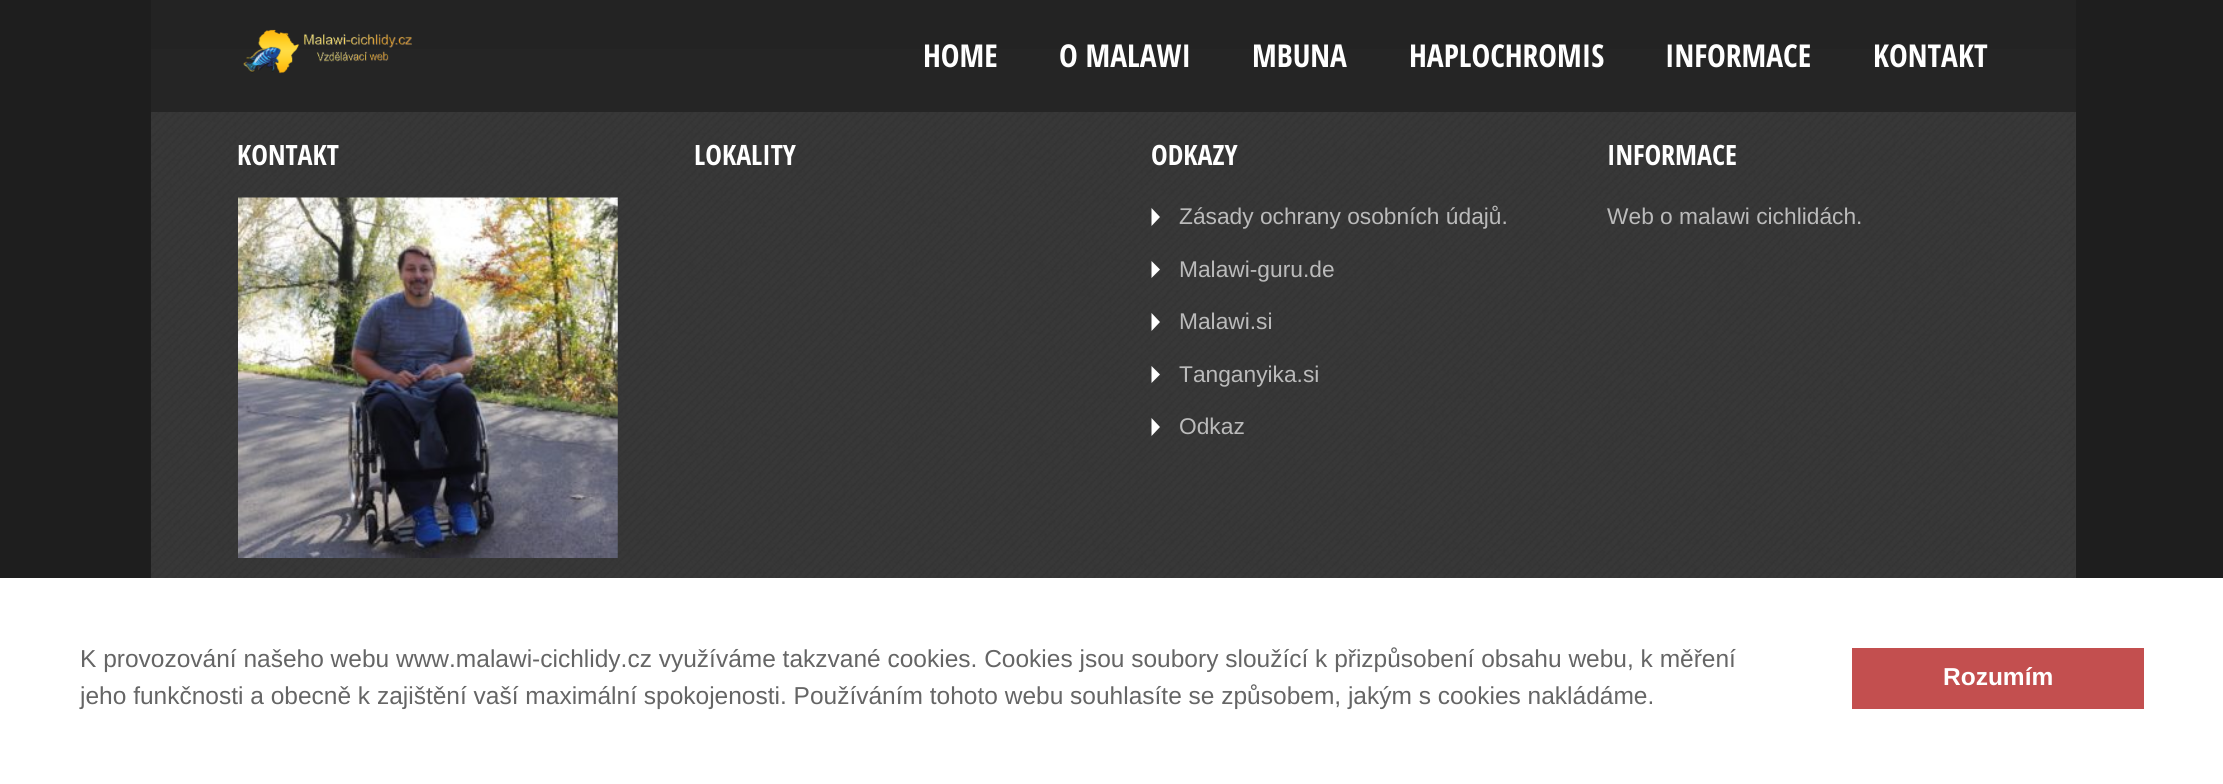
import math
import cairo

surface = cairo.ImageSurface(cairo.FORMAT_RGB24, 2223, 784)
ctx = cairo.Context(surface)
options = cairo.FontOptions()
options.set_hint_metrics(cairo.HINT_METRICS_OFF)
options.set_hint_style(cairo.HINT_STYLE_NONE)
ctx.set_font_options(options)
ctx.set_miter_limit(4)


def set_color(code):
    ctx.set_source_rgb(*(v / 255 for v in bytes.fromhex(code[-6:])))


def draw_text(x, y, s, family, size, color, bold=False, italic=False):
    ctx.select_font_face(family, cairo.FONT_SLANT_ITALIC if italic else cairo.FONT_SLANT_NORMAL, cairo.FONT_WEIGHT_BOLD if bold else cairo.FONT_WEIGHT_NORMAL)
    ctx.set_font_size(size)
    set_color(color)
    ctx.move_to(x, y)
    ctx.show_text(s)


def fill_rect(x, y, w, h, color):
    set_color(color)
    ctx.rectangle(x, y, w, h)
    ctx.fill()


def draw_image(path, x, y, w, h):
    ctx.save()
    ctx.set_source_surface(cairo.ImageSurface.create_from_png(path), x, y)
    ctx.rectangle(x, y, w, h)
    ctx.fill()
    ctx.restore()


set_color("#1e1e1e")
ctx.paint()
ctx.set_source_rgba(0.141, 0.141, 0.141, 0.9)
ctx.rectangle(151, 0, 1925, 49)
ctx.fill()
fill_rect(151, 49, 1925, 529, "#383838")
draw_image("assets/img2.png", 151, 49, 1924, 529)
ctx.set_source_rgba(0.141, 0.141, 0.141, 0.9)
ctx.rectangle(151, 49, 1925, 63)
ctx.fill()
draw_image("assets/img1.png", 243, 29, 169, 45)
draw_text(923, 67, "HOME", "Open Sans Condensed", 31.5, "#ffffff", bold=True)
draw_text(1059, 67, "O MALAWI", "Open Sans Condensed", 31.5, "#ffffff", bold=True)
draw_text(1252, 67, "MBUNA", "Open Sans Condensed", 31.5, "#ffffff", bold=True)
draw_text(1409, 67, "HAPLOCHROMIS", "Open Sans Condensed", 31.5, "#ffffff", bold=True)
draw_text(1665, 67, "INFORMACE", "Open Sans Condensed", 31.5, "#ffffff", bold=True)
draw_text(1873, 67, "KONTAKT", "Open Sans Condensed", 31.5, "#ffffff", bold=True)
draw_text(237, 165, "KONTAKT", "Open Sans Condensed", 28, "#ffffff", bold=True)
draw_image("assets/img3.png", 238, 197, 380, 361)
draw_text(694, 165, "LOKALITY", "Open Sans Condensed", 28, "#ffffff", bold=True)
draw_text(1151, 165, "ODKAZY", "Open Sans Condensed", 28, "#ffffff", bold=True)
ctx.new_path()
ctx.move_to(1151.5, 226)
ctx.line_to(1151.5, 208)
ctx.line_to(1160, 217)
ctx.close_path()
ctx.fill()
draw_text(1179, 224, "Zásady ochrany osobních údajů.", "Liberation Sans", 22.75, "#bbbbbb")
set_color("#ffffff")
ctx.new_path()
ctx.move_to(1151.5, 278)
ctx.line_to(1151.5, 261)
ctx.line_to(1160, 269.5)
ctx.close_path()
ctx.fill()
draw_text(1179, 277, "Malawi-guru.de", "Liberation Sans", 22.75, "#bbbbbb")
set_color("#ffffff")
ctx.new_path()
ctx.move_to(1151.5, 331)
ctx.line_to(1151.5, 313)
ctx.line_to(1160, 322)
ctx.close_path()
ctx.fill()
draw_text(1179, 329, "Malawi.si", "Liberation Sans", 22.75, "#bbbbbb")
set_color("#ffffff")
ctx.new_path()
ctx.move_to(1151.5, 383)
ctx.line_to(1151.5, 366)
ctx.line_to(1160, 374.5)
ctx.close_path()
ctx.fill()
draw_text(1179, 382, "Tanganyika.si", "Liberation Sans", 22.75, "#bbbbbb")
set_color("#ffffff")
ctx.new_path()
ctx.move_to(1151.5, 436)
ctx.line_to(1151.5, 418)
ctx.line_to(1160, 427)
ctx.close_path()
ctx.fill()
draw_text(1179, 434, "Odkaz", "Liberation Sans", 22.75, "#bbbbbb")
draw_text(1607, 165, "INFORMACE", "Open Sans Condensed", 28, "#ffffff", bold=True)
draw_text(1607, 224, "Web o malawi cichlidách.", "Liberation Sans", 22.75, "#bbbbbb")
fill_rect(0, 578, 2223, 206, "#ffffff")
draw_text(80, 667, "K provozování našeho webu www.malawi-cichlidy.cz využíváme takzvané cookies. Cookies jsou soubory sloužící k přizpůsobení obsahu webu, k měření", "Liberation Sans", 24.5, "#656565")
draw_text(80, 704, "jeho funkčnosti a obecně k zajištění vaší maximální spokojenosti. Používáním tohoto webu souhlasíte se způsobem, jakým s cookies nakládáme.", "Liberation Sans", 24.5, "#656565")
fill_rect(1852, 648, 292, 61, "#c34f4f")
draw_text(1943, 685, "Rozumím", "Liberation Sans", 24.5, "#ffffff", bold=True)
surface.write_to_png("output.png")
